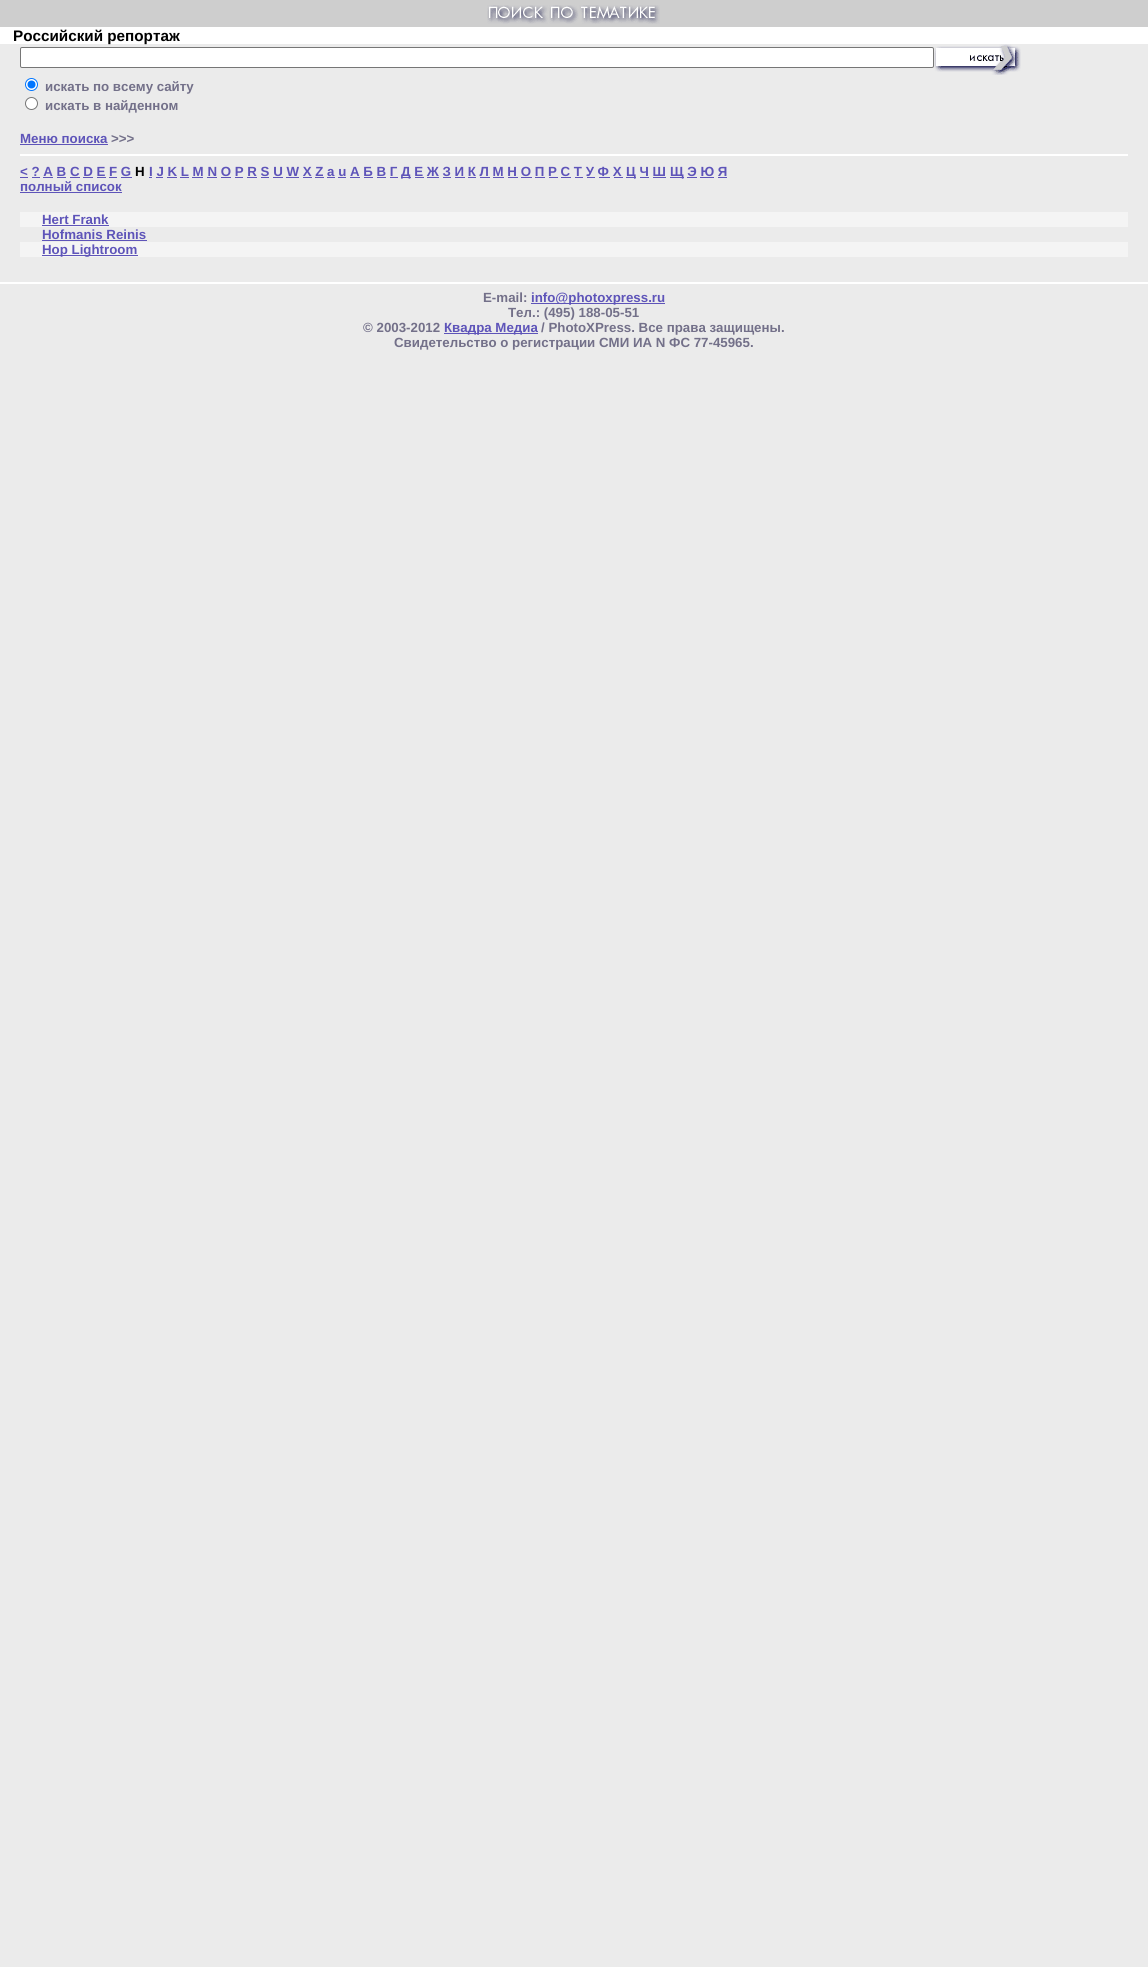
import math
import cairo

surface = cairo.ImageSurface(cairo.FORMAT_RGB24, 1148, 1967)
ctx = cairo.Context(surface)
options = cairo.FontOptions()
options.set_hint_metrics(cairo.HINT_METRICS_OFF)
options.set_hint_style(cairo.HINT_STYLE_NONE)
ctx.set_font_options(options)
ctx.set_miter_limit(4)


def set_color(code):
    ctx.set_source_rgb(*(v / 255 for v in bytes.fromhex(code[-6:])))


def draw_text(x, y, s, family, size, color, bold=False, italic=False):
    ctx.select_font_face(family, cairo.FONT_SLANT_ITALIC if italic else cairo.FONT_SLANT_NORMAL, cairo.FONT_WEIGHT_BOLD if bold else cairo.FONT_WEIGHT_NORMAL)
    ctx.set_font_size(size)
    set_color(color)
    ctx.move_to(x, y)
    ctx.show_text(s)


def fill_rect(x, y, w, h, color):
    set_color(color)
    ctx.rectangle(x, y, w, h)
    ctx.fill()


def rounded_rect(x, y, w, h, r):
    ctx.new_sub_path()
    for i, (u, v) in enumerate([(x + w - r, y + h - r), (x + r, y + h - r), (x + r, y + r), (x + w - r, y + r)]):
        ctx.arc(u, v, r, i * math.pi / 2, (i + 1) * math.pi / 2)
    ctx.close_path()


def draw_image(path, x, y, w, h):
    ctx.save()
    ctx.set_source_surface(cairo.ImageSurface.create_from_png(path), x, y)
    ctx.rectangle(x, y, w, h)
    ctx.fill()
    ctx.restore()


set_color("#ebebeb")
ctx.paint()
fill_rect(0, 0, 1148, 27, "#cecece")
draw_image("assets/img1.png", 487, 5, 173, 19)
fill_rect(0, 27, 1148, 17, "#ffffff")
draw_text(13, 41, "Российский репортаж", "Liberation Sans", 15.25, "#000000", bold=True)
set_color("#ffffff")
rounded_rect(20.5, 47.5, 913, 20, 1.5)
ctx.fill_preserve()
set_color("#767676")
ctx.set_line_width(1)
ctx.stroke()
draw_image("assets/img2.png", 934, 44, 87, 31)
set_color("#ffffff")
ctx.arc(31.5, 84.5, 6, 0, 2 * math.pi)
ctx.fill_preserve()
set_color("#0075ff")
ctx.stroke()
ctx.arc(31.5, 84.5, 4, 0, 2 * math.pi)
ctx.fill()
draw_text(45, 91, "искать по всему сайту", "Liberation Sans", 13.3, "#737089", bold=True)
set_color("#ffffff")
ctx.new_path()
ctx.arc(31.5, 103.5, 6, 0, 2 * math.pi)
ctx.fill_preserve()
set_color("#767676")
ctx.stroke()
draw_text(45, 110, "искать в найденном", "Liberation Sans", 13.3, "#737089", bold=True)
draw_text(20, 143, "Меню поиска", "Liberation Sans", 13.3, "#5e54b9", bold=True)
fill_rect(20, 144, 88, 1, "#5e54b9")
draw_text(111, 143, ">>>", "Liberation Sans", 13.3, "#737089", bold=True)
fill_rect(20, 154, 1108, 2, "#ffffff")
draw_text(20, 176, "< ? A B C D E F G", "Liberation Sans", 13.3, "#5e54b9", bold=True)
fill_rect(20, 177, 8, 1, "#5e54b9")
fill_rect(32, 177, 8, 1, "#5e54b9")
fill_rect(43, 177, 10, 1, "#5e54b9")
fill_rect(57, 177, 9, 1, "#5e54b9")
fill_rect(70, 177, 10, 1, "#5e54b9")
fill_rect(83, 177, 10, 1, "#5e54b9")
fill_rect(97, 177, 9, 1, "#5e54b9")
fill_rect(109, 177, 8, 1, "#5e54b9")
fill_rect(121, 177, 11, 1, "#5e54b9")
draw_text(135, 176, "H", "Liberation Sans", 13.3, "#000000", bold=True)
draw_text(149, 176, "I J K L M N O P R S U W X Z a u А Б В Г", "Liberation Sans", 13.3, "#5e54b9", bold=True)
fill_rect(149, 177, 3, 1, "#5e54b9")
fill_rect(156, 177, 7, 1, "#5e54b9")
fill_rect(167, 177, 10, 1, "#5e54b9")
fill_rect(180, 177, 9, 1, "#5e54b9")
fill_rect(192, 177, 11, 1, "#5e54b9")
fill_rect(207, 177, 10, 1, "#5e54b9")
fill_rect(221, 177, 10, 1, "#5e54b9")
fill_rect(235, 177, 8, 1, "#5e54b9")
fill_rect(247, 177, 10, 1, "#5e54b9")
fill_rect(261, 177, 8, 1, "#5e54b9")
fill_rect(273, 177, 10, 1, "#5e54b9")
fill_rect(286, 177, 13, 1, "#5e54b9")
fill_rect(303, 177, 9, 1, "#5e54b9")
fill_rect(315, 177, 9, 1, "#5e54b9")
fill_rect(327, 177, 8, 1, "#5e54b9")
fill_rect(338, 177, 8, 1, "#5e54b9")
fill_rect(350, 177, 10, 1, "#5e54b9")
fill_rect(364, 177, 9, 1, "#5e54b9")
fill_rect(377, 177, 9, 1, "#5e54b9")
fill_rect(390, 177, 8, 1, "#5e54b9")
fill_rect(401, 177, 10, 1, "#5e54b9")
draw_text(401, 176, "Д Е Ж З И К Л М Н О П Р С Т У Ф Х", "Liberation Sans", 13.3, "#5e54b9", bold=True)
fill_rect(415, 177, 9, 1, "#5e54b9")
fill_rect(427, 177, 12, 1, "#5e54b9")
fill_rect(443, 177, 8, 1, "#5e54b9")
fill_rect(455, 177, 10, 1, "#5e54b9")
fill_rect(468, 177, 8, 1, "#5e54b9")
fill_rect(480, 177, 10, 1, "#5e54b9")
fill_rect(493, 177, 11, 1, "#5e54b9")
fill_rect(508, 177, 10, 1, "#5e54b9")
fill_rect(521, 177, 11, 1, "#5e54b9")
fill_rect(535, 177, 10, 1, "#5e54b9")
fill_rect(549, 177, 9, 1, "#5e54b9")
fill_rect(561, 177, 10, 1, "#5e54b9")
fill_rect(575, 177, 8, 1, "#5e54b9")
fill_rect(587, 177, 8, 1, "#5e54b9")
fill_rect(599, 177, 11, 1, "#5e54b9")
fill_rect(614, 177, 9, 1, "#5e54b9")
fill_rect(626, 177, 10, 1, "#5e54b9")
draw_text(626, 176, "Ц Ч Ш", "Liberation Sans", 13.3, "#5e54b9", bold=True)
fill_rect(640, 177, 9, 1, "#5e54b9")
fill_rect(653, 177, 13, 1, "#5e54b9")
fill_rect(670, 177, 14, 1, "#5e54b9")
draw_text(670, 176, "Щ Э Ю Я", "Liberation Sans", 13.3, "#5e54b9", bold=True)
fill_rect(687, 177, 10, 1, "#5e54b9")
fill_rect(700, 177, 14, 1, "#5e54b9")
fill_rect(718, 177, 9, 1, "#5e54b9")
draw_text(20, 191, "полный список", "Liberation Sans", 13.3, "#5e54b9", bold=True)
fill_rect(20, 192, 102, 1, "#5e54b9")
fill_rect(20, 212, 1108, 15, "#f4f4f4")
draw_text(42, 224, "Hert Frank", "Liberation Sans", 13.3, "#5e54b9", bold=True)
fill_rect(42, 225, 67, 1, "#5e54b9")
draw_text(42, 239, "Hofmanis Reinis", "Liberation Sans", 13.3, "#5e54b9", bold=True)
fill_rect(42, 240, 105, 1, "#5e54b9")
fill_rect(20, 242, 1108, 15, "#f4f4f4")
fill_rect(42, 255, 96, 1, "#5e54b9")
draw_text(42, 254, "Hop Lightroom", "Liberation Sans", 13.3, "#5e54b9", bold=True)
fill_rect(0, 282, 1148, 2, "#ffffff")
draw_text(483, 302, "E-mail:", "Liberation Sans", 13.3, "#737089", bold=True)
fill_rect(531, 303, 134, 1, "#5e54b9")
draw_text(531, 302, "info@photoxpress.ru", "Liberation Sans", 13.3, "#5e54b9", bold=True)
draw_text(508, 317, "Тел.: (495) 188-05-51", "Liberation Sans", 13.3, "#737089", bold=True)
draw_text(363, 332, "© 2003-2012", "Liberation Sans", 13.3, "#737089", bold=True)
fill_rect(444, 333, 94, 1, "#5e54b9")
draw_text(444, 332, "Квадра Медиа", "Liberation Sans", 13.3, "#5e54b9", bold=True)
draw_text(541, 332, "/ PhotoXPress. Все права защищены.", "Liberation Sans", 13.3, "#737089", bold=True)
draw_text(394, 347, "Свидетельство о регистрации СМИ ИА N ФС 77-45965.", "Liberation Sans", 13.3, "#737089", bold=True)
surface.write_to_png("output.png")
